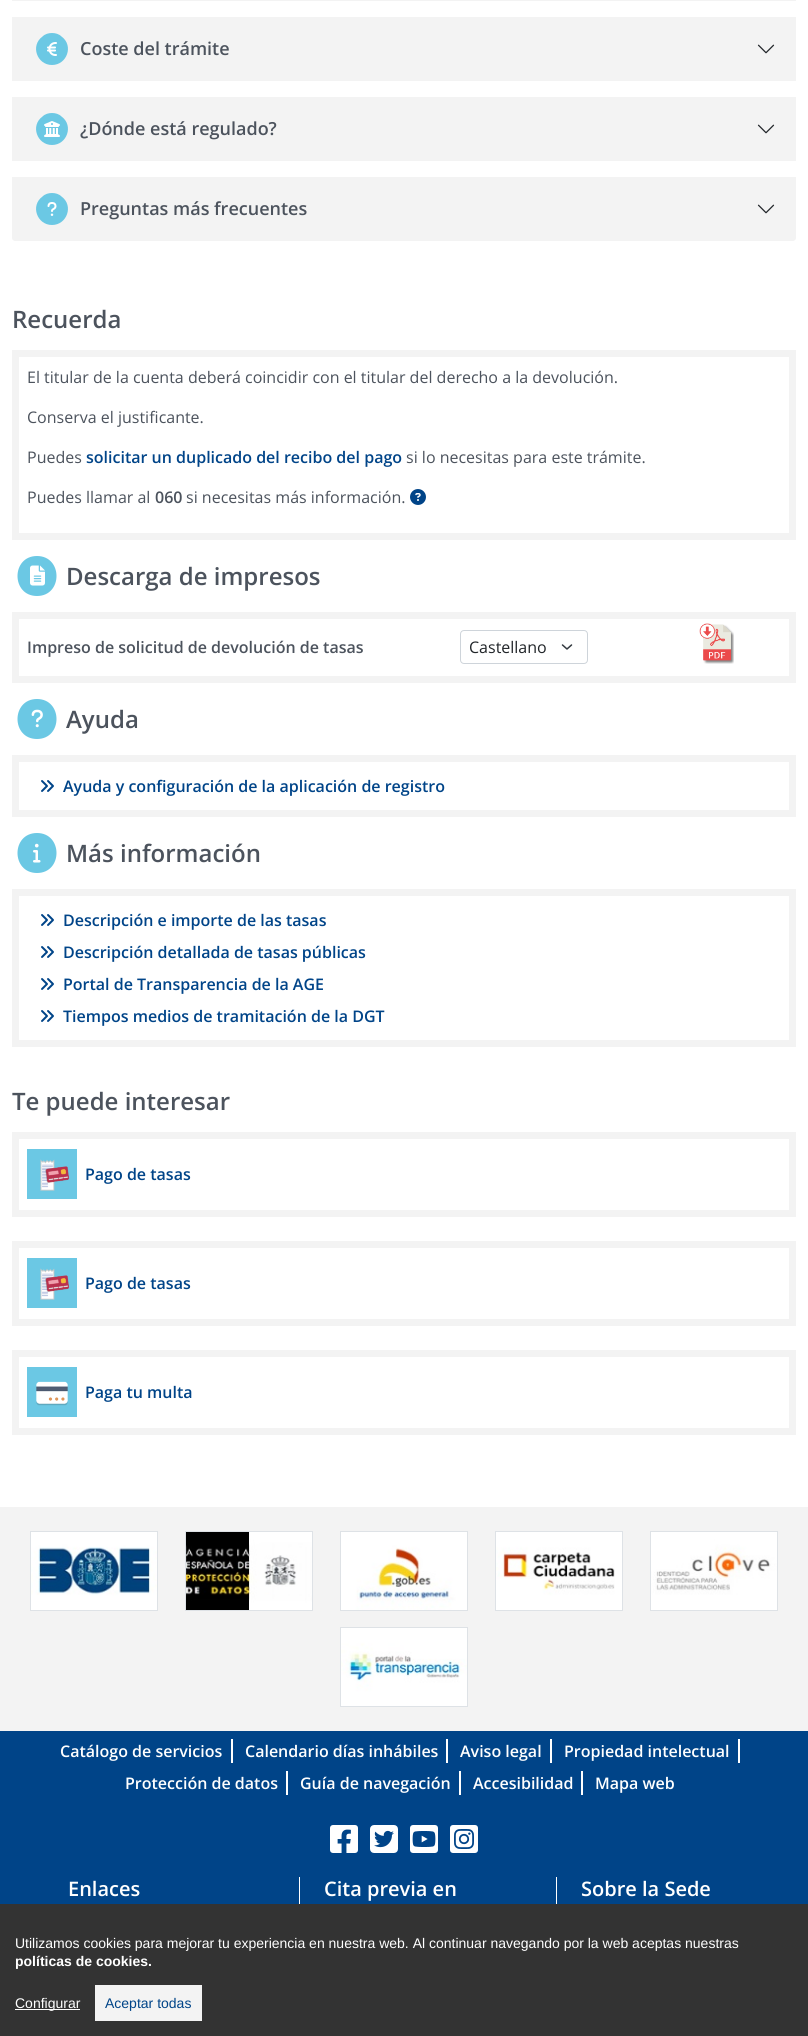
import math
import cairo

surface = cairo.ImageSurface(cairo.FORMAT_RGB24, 808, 2036)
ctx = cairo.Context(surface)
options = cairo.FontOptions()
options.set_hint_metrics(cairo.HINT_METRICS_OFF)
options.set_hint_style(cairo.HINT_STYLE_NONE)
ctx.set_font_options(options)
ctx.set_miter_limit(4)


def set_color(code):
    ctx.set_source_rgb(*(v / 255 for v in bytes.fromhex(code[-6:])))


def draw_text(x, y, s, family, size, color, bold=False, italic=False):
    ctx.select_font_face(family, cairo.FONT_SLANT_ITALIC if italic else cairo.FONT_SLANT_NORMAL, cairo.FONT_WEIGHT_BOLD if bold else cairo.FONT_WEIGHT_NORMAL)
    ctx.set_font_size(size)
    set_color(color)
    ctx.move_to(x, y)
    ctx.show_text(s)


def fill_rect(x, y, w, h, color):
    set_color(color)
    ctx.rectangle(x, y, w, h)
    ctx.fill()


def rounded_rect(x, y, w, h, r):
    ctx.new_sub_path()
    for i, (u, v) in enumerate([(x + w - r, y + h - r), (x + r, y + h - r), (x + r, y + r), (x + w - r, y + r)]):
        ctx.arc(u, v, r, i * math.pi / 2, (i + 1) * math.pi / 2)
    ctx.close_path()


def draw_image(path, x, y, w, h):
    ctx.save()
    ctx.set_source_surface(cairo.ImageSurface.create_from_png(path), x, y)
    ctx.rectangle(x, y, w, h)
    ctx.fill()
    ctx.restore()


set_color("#ffffff")
ctx.paint()
fill_rect(12, 0, 784, 1, "#f3f3f3")
fill_rect(12, 17, 784, 64, "#f3f3f3")
set_color("#6bc8e4")
ctx.new_path()
ctx.move_to(52, 65)
ctx.curve_to(67, 65, 74, 45.5, 61.5, 36.5)
ctx.curve_to(59, 34, 55.5, 33, 52, 33)
ctx.curve_to(48.5, 33, 45, 34, 42.5, 36.5)
ctx.curve_to(30, 45.5, 37, 65, 52, 65)
ctx.close_path()
ctx.fill()
draw_image("assets/img1.png", 47, 42, 10, 14)
draw_text(80, 55, "Coste del trámite", "Open Sans SemiBold", 18, "#4c535d")
draw_image("assets/img2.png", 757, 44, 18, 10)
fill_rect(12, 97, 784, 64, "#f3f3f3")
set_color("#6bc8e4")
ctx.new_path()
ctx.move_to(52, 145)
ctx.curve_to(67, 145, 74, 125.5, 61.5, 116.5)
ctx.curve_to(59, 114, 55.5, 113, 52, 113)
ctx.curve_to(48.5, 113, 45, 114, 42.5, 116.5)
ctx.curve_to(30, 125.5, 37, 145, 52, 145)
ctx.close_path()
ctx.fill()
draw_image("assets/img3.png", 44, 121, 16, 16)
draw_text(80, 135, "¿Dónde está regulado?", "Open Sans SemiBold", 18, "#4c535d")
draw_image("assets/img2.png", 757, 124, 18, 10)
set_color("#f3f3f3")
ctx.new_path()
ctx.move_to(12, 177)
ctx.line_to(796, 177)
ctx.line_to(796, 238)
ctx.curve_to(796, 239.5, 794.5, 241, 793, 241)
ctx.line_to(15, 241)
ctx.curve_to(13.5, 241, 12, 239.5, 12, 238)
ctx.close_path()
ctx.fill()
set_color("#6bc8e4")
ctx.new_path()
ctx.move_to(52, 225)
ctx.curve_to(67, 225, 74, 205.5, 61.5, 196.5)
ctx.curve_to(59, 194, 55.5, 193, 52, 193)
ctx.curve_to(48.5, 193, 45, 194, 42.5, 196.5)
ctx.curve_to(30, 205.5, 37, 225, 52, 225)
ctx.close_path()
ctx.fill()
draw_image("assets/img4.png", 47, 202, 10, 14)
draw_text(80, 215, "Preguntas más frecuentes", "Open Sans SemiBold", 18, "#4c535d")
draw_image("assets/img2.png", 757, 204, 18, 10)
draw_text(12, 328, "Recuerda", "Open Sans SemiBold", 24, "#4c535d")
ctx.rectangle(15.5, 353.5, 777, 183)
set_color("#f3f3f3")
ctx.set_line_width(7)
ctx.stroke()
draw_text(27, 383, "El titular de la cuenta deberá coincidir con el titular del derecho a la devolución.", "Open Sans", 16, "#4c535d")
draw_text(27, 423, "Conserva el justificante.", "Open Sans", 16, "#4c535d")
draw_text(27, 463, "Puedes", "Open Sans", 16, "#4c535d")
draw_text(86, 463, "solicitar un duplicado del recibo del pago", "Open Sans SemiBold", 16, "#004488")
draw_text(406, 463, "si lo necesitas para este trámite.", "Open Sans", 16, "#4c535d")
draw_text(27, 503, "Puedes llamar al", "Open Sans", 16, "#4c535d")
draw_text(155, 503, "060", "Open Sans SemiBold", 16, "#4c535d")
draw_text(186, 503, "si necesitas más información.", "Open Sans", 16, "#4c535d")
draw_image("assets/img5.png", 410, 489, 16, 16)
set_color("#6bc8e4")
ctx.new_path()
ctx.move_to(37, 596)
ctx.curve_to(63, 596, 63, 556, 37, 556)
ctx.curve_to(11, 556, 11, 596, 37, 596)
ctx.close_path()
ctx.fill()
draw_image("assets/img6.png", 30, 565, 15, 21)
draw_text(66, 585, "Descarga de impresos", "Open Sans SemiBold", 24, "#4c535d")
ctx.rectangle(15.5, 615.5, 777, 64)
set_color("#f3f3f3")
ctx.stroke()
draw_text(27, 653, "Impreso de solicitud de devolución de tasas", "Open Sans SemiBold", 16, "#4c535d")
ctx.new_path()
ctx.move_to(562.5, 645)
ctx.line_to(567, 649)
ctx.line_to(571.5, 645)
set_color("#343a40")
ctx.set_line_width(1.5)
ctx.set_line_cap(cairo.LINE_CAP_ROUND)
ctx.set_line_join(cairo.LINE_JOIN_ROUND)
ctx.stroke()
rounded_rect(460.5, 630.5, 127, 33, 3.5)
set_color("#ced4da")
ctx.set_line_width(1)
ctx.set_line_cap(cairo.LINE_CAP_BUTT)
ctx.set_line_join(cairo.LINE_JOIN_MITER)
ctx.stroke()
draw_text(469, 653, "Castellano", "Open Sans", 16, "#212529")
draw_image("assets/img7.png", 699, 623, 35, 41)
set_color("#6bc8e4")
ctx.new_path()
ctx.move_to(37, 739)
ctx.curve_to(63, 739, 63, 699, 37, 699)
ctx.curve_to(11, 699, 11, 739, 37, 739)
ctx.close_path()
ctx.fill()
draw_image("assets/img8.png", 31, 709, 12, 19)
draw_text(66, 728, "Ayuda", "Open Sans SemiBold", 24, "#4c535d")
ctx.rectangle(15.5, 758.5, 777, 55)
set_color("#f3f3f3")
ctx.set_line_width(7)
ctx.stroke()
draw_image("assets/img9.png", 41, 780, 13, 12)
draw_text(63, 792, "Ayuda y configuración de la aplicación de registro", "Open Sans SemiBold", 16, "#004488")
set_color("#6bc8e4")
ctx.new_path()
ctx.move_to(37, 873)
ctx.curve_to(63, 873, 63, 833, 37, 833)
ctx.curve_to(11, 833, 11, 873, 37, 873)
ctx.close_path()
ctx.fill()
draw_image("assets/img10.png", 33, 843, 8, 20)
draw_text(66, 862, "Más información", "Open Sans SemiBold", 24, "#4c535d")
ctx.rectangle(15.5, 892.5, 777, 151)
set_color("#f3f3f3")
ctx.stroke()
draw_image("assets/img9.png", 41, 914, 13, 12)
draw_text(63, 926, "Descripción e importe de las tasas", "Open Sans SemiBold", 16, "#004488")
draw_image("assets/img9.png", 41, 946, 13, 12)
draw_text(63, 958, "Descripción detallada de tasas públicas", "Open Sans SemiBold", 16, "#004488")
draw_image("assets/img9.png", 41, 978, 13, 12)
draw_text(63, 990, "Portal de Transparencia de la AGE", "Open Sans SemiBold", 16, "#004488")
draw_image("assets/img9.png", 41, 1010, 13, 12)
draw_text(63, 1022, "Tiempos medios de tramitación de la DGT", "Open Sans SemiBold", 16, "#004488")
draw_text(12, 1110, "Te puede interesar", "Open Sans SemiBold", 24, "#4c535d")
ctx.rectangle(15.5, 1135.5, 777, 78)
set_color("#f3f3f3")
ctx.stroke()
draw_image("assets/img11.png", 27, 1149, 50, 50)
draw_text(85, 1180, "Pago de tasas", "Open Sans SemiBold", 16, "#004488")
ctx.rectangle(15.5, 1244.5, 777, 78)
set_color("#f3f3f3")
ctx.stroke()
draw_image("assets/img11.png", 27, 1258, 50, 50)
draw_text(85, 1289, "Pago de tasas", "Open Sans SemiBold", 16, "#004488")
ctx.rectangle(15.5, 1353.5, 777, 78)
set_color("#f3f3f3")
ctx.stroke()
draw_image("assets/img12.png", 27, 1367, 50, 50)
draw_text(85, 1398, "Paga tu multa", "Open Sans SemiBold", 16, "#004488")
fill_rect(0, 1731, 808, 173, "#004488")
fill_rect(0, 1507, 808, 224, "#f3f3f3")
ctx.rectangle(30.5, 1531.5, 127, 79)
set_color("#dee2e6")
ctx.set_line_width(1)
ctx.stroke()
draw_image("assets/img13.png", 31, 1532, 126, 78)
ctx.rectangle(185.5, 1531.5, 127, 79)
ctx.stroke()
draw_image("assets/img14.png", 186, 1532, 126, 78)
ctx.rectangle(340.5, 1531.5, 127, 79)
ctx.stroke()
draw_image("assets/img15.png", 341, 1532, 126, 78)
ctx.rectangle(495.5, 1531.5, 127, 79)
ctx.stroke()
draw_image("assets/img16.png", 496, 1532, 126, 78)
ctx.rectangle(650.5, 1531.5, 127, 79)
ctx.stroke()
draw_image("assets/img17.png", 651, 1532, 126, 78)
ctx.rectangle(340.5, 1627.5, 127, 79)
ctx.stroke()
draw_image("assets/img18.png", 341, 1628, 126, 78)
fill_rect(231, 1739, 2, 24, "#ffffff")
draw_text(60, 1757, "Catálogo de servicios", "Open Sans SemiBold", 16, "#ffffff")
fill_rect(446, 1739, 2, 24, "#ffffff")
draw_text(245, 1757, "Calendario días inhábiles", "Open Sans SemiBold", 16, "#ffffff")
fill_rect(550, 1739, 2, 24, "#ffffff")
draw_text(460, 1757, "Aviso legal", "Open Sans SemiBold", 16, "#ffffff")
fill_rect(738, 1739, 2, 24, "#ffffff")
draw_text(564, 1757, "Propiedad intelectual", "Open Sans SemiBold", 16, "#ffffff")
fill_rect(286, 1771, 2, 24, "#ffffff")
draw_text(125, 1789, "Protección de datos", "Open Sans SemiBold", 16, "#ffffff")
fill_rect(459, 1771, 2, 24, "#ffffff")
draw_text(300, 1789, "Guía de navegación", "Open Sans SemiBold", 16, "#ffffff")
fill_rect(581, 1771, 2, 24, "#ffffff")
draw_text(473, 1789, "Accesibilidad", "Open Sans SemiBold", 16, "#ffffff")
draw_text(595, 1789, "Mapa web", "Open Sans SemiBold", 16, "#ffffff")
draw_image("assets/img19.png", 330, 1825, 28, 28)
draw_image("assets/img20.png", 370, 1825, 28, 28)
draw_image("assets/img21.png", 410, 1825, 28, 28)
draw_image("assets/img22.png", 450, 1825, 28, 28)
draw_text(68, 1896, "Enlaces", "Open Sans SemiBold", 20, "#ffffff")
fill_rect(299, 1877, 1, 27, "#ffffff")
draw_text(324, 1896, "Cita previa en", "Open Sans SemiBold", 20, "#ffffff")
fill_rect(556, 1877, 1, 27, "#ffffff")
draw_text(581, 1896, "Sobre la Sede", "Open Sans SemiBold", 20, "#ffffff")
fill_rect(0, 1904, 808, 132, "#333333")
draw_text(15, 1948, "Utilizamos cookies para mejorar tu experiencia en nuestra web. Al continuar navegando por la web aceptas nuestras", "Liberation Sans", 14, "#ffffff")
draw_text(15, 1966, "políticas de cookies.", "Liberation Sans", 14, "#ffffff", bold=True)
fill_rect(15, 2009, 65, 1, "#ffffff")
draw_text(15, 2008, "Configurar", "Liberation Sans", 14, "#ffffff")
fill_rect(95, 1985, 107, 36, "#f3f3f3")
draw_text(105, 2008, "Aceptar todas", "Liberation Sans", 14, "#004488")
surface.write_to_png("output.png")
